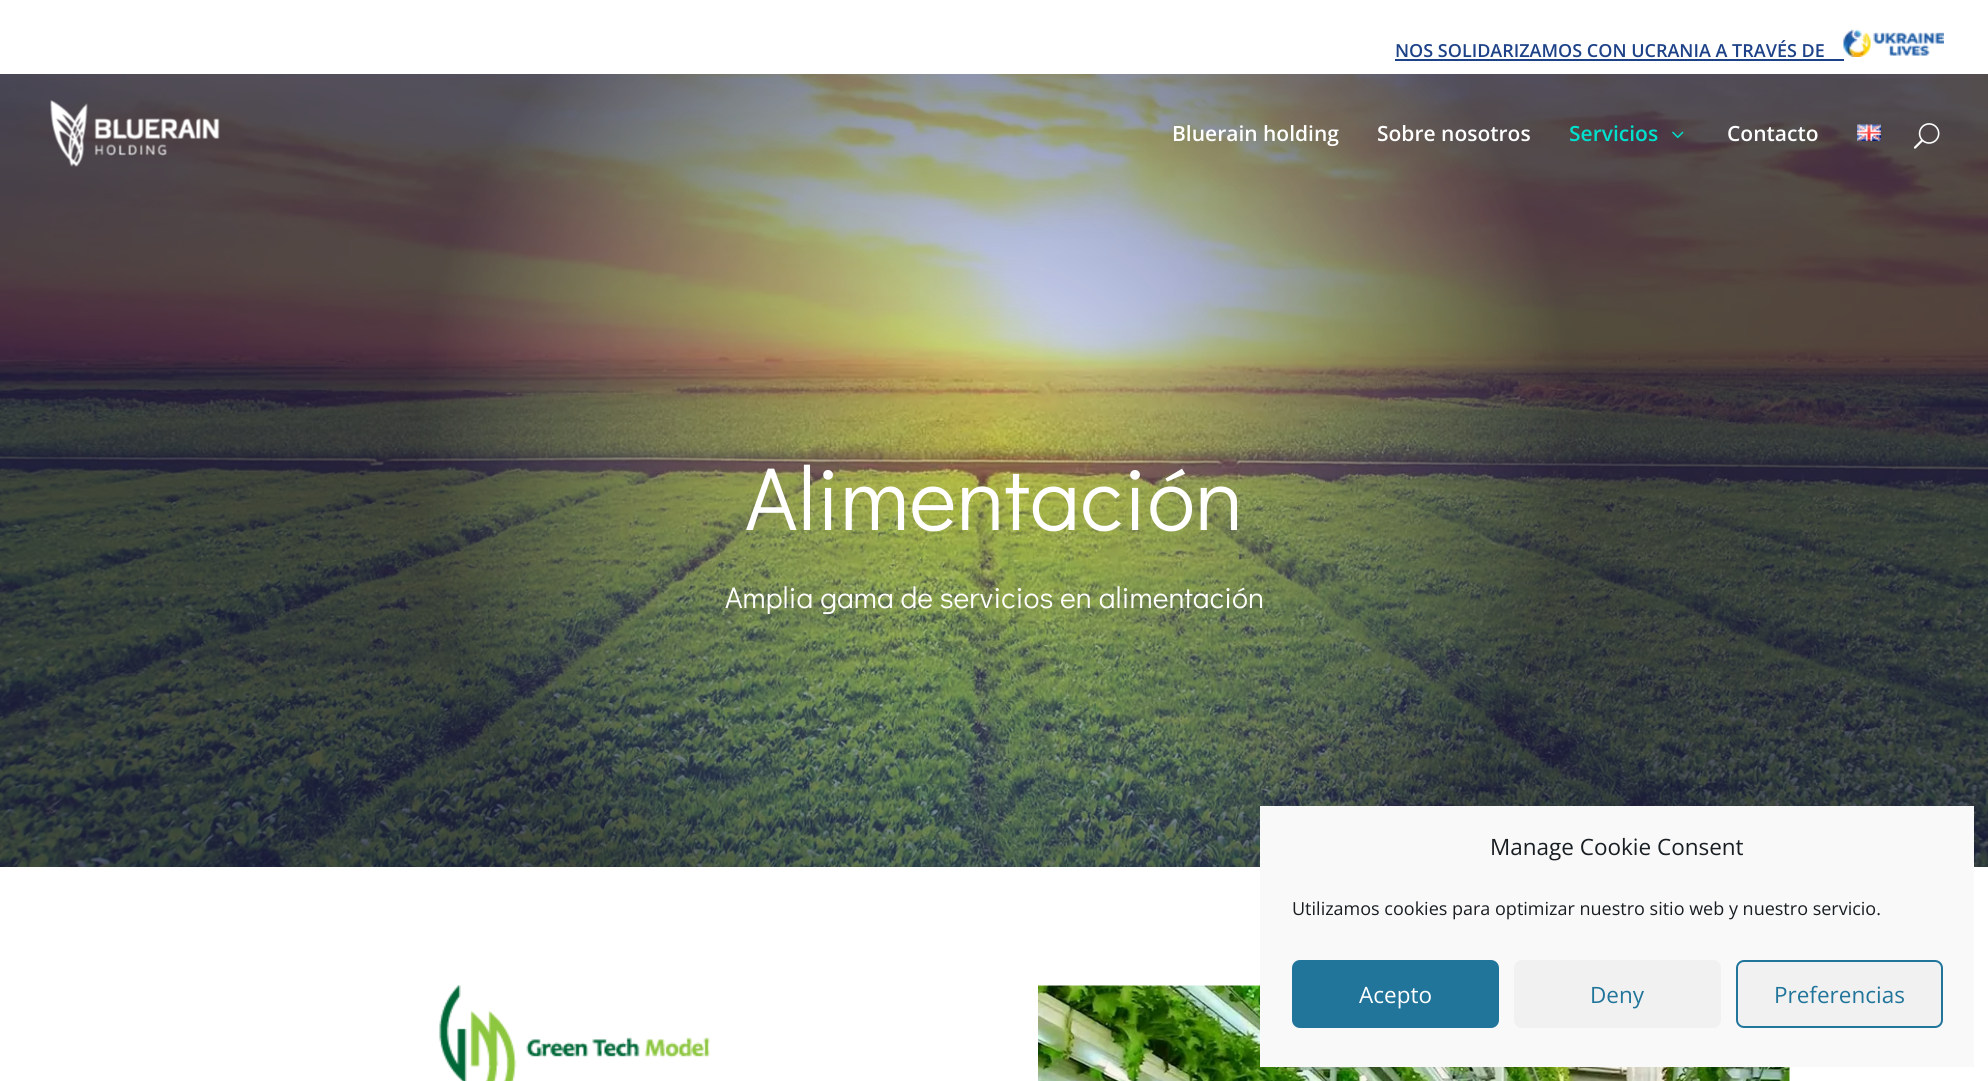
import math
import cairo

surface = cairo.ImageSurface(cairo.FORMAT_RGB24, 1988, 1081)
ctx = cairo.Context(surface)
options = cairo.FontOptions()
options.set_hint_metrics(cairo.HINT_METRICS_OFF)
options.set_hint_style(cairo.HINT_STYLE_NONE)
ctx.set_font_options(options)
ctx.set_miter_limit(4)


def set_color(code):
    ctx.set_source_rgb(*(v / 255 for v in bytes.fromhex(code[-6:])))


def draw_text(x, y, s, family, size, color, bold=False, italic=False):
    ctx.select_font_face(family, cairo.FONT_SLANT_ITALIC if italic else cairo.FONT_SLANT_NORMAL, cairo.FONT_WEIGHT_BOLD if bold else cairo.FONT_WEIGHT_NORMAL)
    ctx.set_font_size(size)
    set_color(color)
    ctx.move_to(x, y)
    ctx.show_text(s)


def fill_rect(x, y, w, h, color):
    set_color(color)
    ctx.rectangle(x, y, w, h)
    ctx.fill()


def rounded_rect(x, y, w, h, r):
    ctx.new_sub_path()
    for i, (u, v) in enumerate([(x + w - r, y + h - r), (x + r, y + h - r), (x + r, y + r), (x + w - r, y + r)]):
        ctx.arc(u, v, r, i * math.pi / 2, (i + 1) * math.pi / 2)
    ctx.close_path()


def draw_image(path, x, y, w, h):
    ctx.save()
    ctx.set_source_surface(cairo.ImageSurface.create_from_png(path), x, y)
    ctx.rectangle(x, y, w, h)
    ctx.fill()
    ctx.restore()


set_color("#ffffff")
ctx.paint()
draw_text(1395, 57, "NOS SOLIDARIZAMOS CON UCRANIA A TRAVÉS DE", "Open Sans SemiBold", 18, "#1d4288")
fill_rect(1395, 59, 449, 2, "#1d4288")
draw_image("assets/img1.png", 1843, 29, 101, 28)
draw_image("assets/img6.png", 0, 74, 1988, 793)
draw_image("assets/img2.png", 50, 100, 170, 67)
draw_text(1172, 141, "Bluerain holding", "Open Sans SemiBold", 21, "#ffffff")
draw_text(1377, 141, "Sobre nosotros", "Open Sans SemiBold", 21, "#ffffff")
draw_text(1569, 141, "Servicios", "Open Sans SemiBold", 21, "#00e0cd")
draw_image("assets/img3.png", 1672, 131, 12, 7)
draw_text(1727, 141, "Contacto", "Open Sans SemiBold", 21, "#ffffff")
draw_image("assets/img4.png", 1857, 124, 24, 17)
draw_image("assets/img5.png", 1913, 123, 27, 26)
draw_text(745, 530, "Alimentación", "Didact Gothic", 90, "#ffffff")
draw_text(725, 608, "Amplia gama de servicios en alimentación", "Didact Gothic", 30, "#ffffff")
draw_image("assets/img7.png", 439, 985, 271, 96)
draw_image("assets/img8.png", 1038, 985, 752, 96)
fill_rect(1260, 806, 714, 261, "#f9f9f9")
draw_text(1490, 855, "Manage Cookie Consent", "Open Sans", 22.5, "#191e23")
draw_text(1292, 915, "Utilizamos cookies para optimizar nuestro sitio web y nuestro servicio.", "Open Sans", 18, "#191e23")
set_color("#21759b")
rounded_rect(1293, 961, 205, 66, 7)
ctx.fill_preserve()
ctx.stroke()
draw_text(1359, 1003, "Acepto", "Open Sans", 22.5, "#ffffff")
set_color("#f1f1f1")
rounded_rect(1514, 960, 207, 68, 8)
ctx.fill()
draw_text(1590, 1003, "Deny", "Open Sans", 22.5, "#21759b")
set_color("#f1f1f1")
rounded_rect(1737, 961, 205, 66, 7)
ctx.fill_preserve()
set_color("#21759b")
ctx.stroke()
draw_text(1774, 1003, "Preferencias", "Open Sans", 22.5, "#21759b")
surface.write_to_png("output.png")
